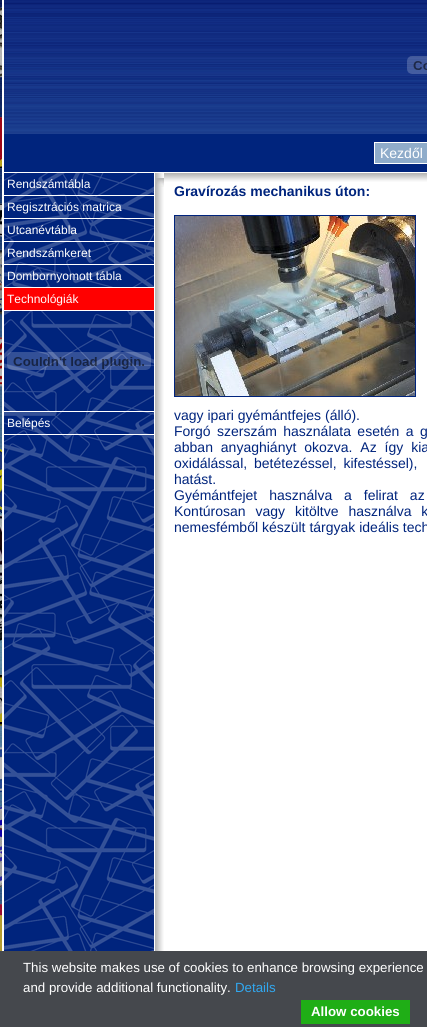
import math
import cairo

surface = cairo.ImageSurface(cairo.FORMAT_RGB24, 427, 1027)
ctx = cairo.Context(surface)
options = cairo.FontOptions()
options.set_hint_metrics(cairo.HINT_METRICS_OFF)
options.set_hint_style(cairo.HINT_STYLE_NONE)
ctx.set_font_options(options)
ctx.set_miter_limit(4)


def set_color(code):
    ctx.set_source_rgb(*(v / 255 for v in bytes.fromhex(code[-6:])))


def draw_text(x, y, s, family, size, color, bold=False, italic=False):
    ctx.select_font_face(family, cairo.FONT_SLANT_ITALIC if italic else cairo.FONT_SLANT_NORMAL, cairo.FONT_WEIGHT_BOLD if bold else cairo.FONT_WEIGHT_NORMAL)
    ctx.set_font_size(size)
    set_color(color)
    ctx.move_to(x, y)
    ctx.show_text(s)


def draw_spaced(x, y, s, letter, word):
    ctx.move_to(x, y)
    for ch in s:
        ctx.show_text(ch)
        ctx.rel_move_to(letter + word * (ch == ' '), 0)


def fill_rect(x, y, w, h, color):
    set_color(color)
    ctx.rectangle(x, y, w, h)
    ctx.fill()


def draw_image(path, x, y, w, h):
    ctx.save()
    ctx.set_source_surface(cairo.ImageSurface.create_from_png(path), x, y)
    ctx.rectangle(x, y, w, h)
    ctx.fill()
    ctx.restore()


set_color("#ffffff")
ctx.paint()
draw_image("assets/img1.png", 4, 0, 423, 134)
draw_image("assets/img2.png", 0, 0, 2, 951)
draw_image("assets/img3.png", 407, 56, 20, 18)
fill_rect(4, 134, 423, 38, "#00247d")
set_color("#8facca")
ctx.rectangle(374.5, 142.5, 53, 21)
ctx.fill_preserve()
set_color("#ffffff")
ctx.set_line_width(1)
ctx.stroke()
draw_text(380, 158, "Kezdől", "Liberation Sans", 14, "#ffffff")
draw_image("assets/img4.png", 4, 173, 150, 778)
fill_rect(4, 195, 150, 1, "#ffffff")
draw_text(7, 188, "Rendszámtábla", "Liberation Sans", 12, "#ffffff")
fill_rect(4, 218, 150, 1, "#ffffff")
draw_text(7, 211, "Regisztrációs matrica", "Liberation Sans", 12, "#ffffff")
fill_rect(4, 241, 150, 1, "#ffffff")
draw_text(7, 234, "Utcanévtábla", "Liberation Sans", 12, "#ffffff")
fill_rect(4, 264, 150, 1, "#ffffff")
draw_text(7, 257, "Rendszámkeret", "Liberation Sans", 12, "#ffffff")
fill_rect(4, 287, 150, 1, "#ffffff")
draw_text(7, 280, "Dombornyomott tábla", "Liberation Sans", 12, "#ffffff")
fill_rect(4, 310, 150, 1, "#ffffff")
fill_rect(4, 288, 150, 22, "#ff0000")
draw_text(7, 303, "Technológiák", "Liberation Sans", 12, "#ffffff")
draw_image("assets/img5.png", 7, 352, 144, 18)
fill_rect(4, 411, 150, 1, "#ffffff")
fill_rect(4, 434, 150, 1, "#ffffff")
draw_text(7, 427, "Belépés", "Liberation Sans", 12, "#ffffff")
draw_image("assets/img6.png", 155, 173, 9, 778)
draw_image("assets/img7.png", 156, 178, 8, 9)
draw_image("assets/img8.png", 164, 173, 263, 9)
draw_text(174, 196, "Gravírozás mechanikus úton:", "Liberation Sans", 14, "#00247d", bold=True)
ctx.rectangle(174.5, 215.5, 241, 181)
ctx.stroke()
draw_image("assets/img9.png", 175, 216, 240, 180)
draw_text(174, 420, "vagy ipari gyémántfejes (álló).", "Liberation Sans", 14, "#00247d")
draw_spaced(174, 436, "Forgó szerszám használata esetén a g", 0, 2.5)
draw_spaced(174, 452, "abban anyaghiányt okozva. Az így kia", 0, 4)
draw_spaced(174, 468, "oxidálással, betétezéssel, kifestéssel),", 0, 3)
draw_text(174, 484, "hatást.", "Liberation Sans", 14, "#00247d")
draw_spaced(174, 500, "Gyémántfejet használva a felirat az", 0, 8)
draw_spaced(174, 516, "Kontúrosan vagy kitöltve használva k", 0, 6)
draw_text(174, 532, "nemesfémből készült tárgyak ideális tech", "Liberation Sans", 14, "#00247d")
fill_rect(0, 951, 427, 76, "#45484d")
draw_text(23, 972, "This website makes use of cookies to enhance browsing experience", "Liberation Sans", 13.3, "#ffffff")
draw_text(23, 992, "and provide additional functionality.", "Liberation Sans", 13.3, "#ffffff")
draw_text(235, 992, "Details", "Liberation Sans", 13.3, "#31a8f0")
fill_rect(301, 1000, 109, 24, "#1fae16")
draw_text(311, 1016, "Allow cookies", "Liberation Sans", 13.3, "#ffffff", bold=True)
surface.write_to_png("output.png")
